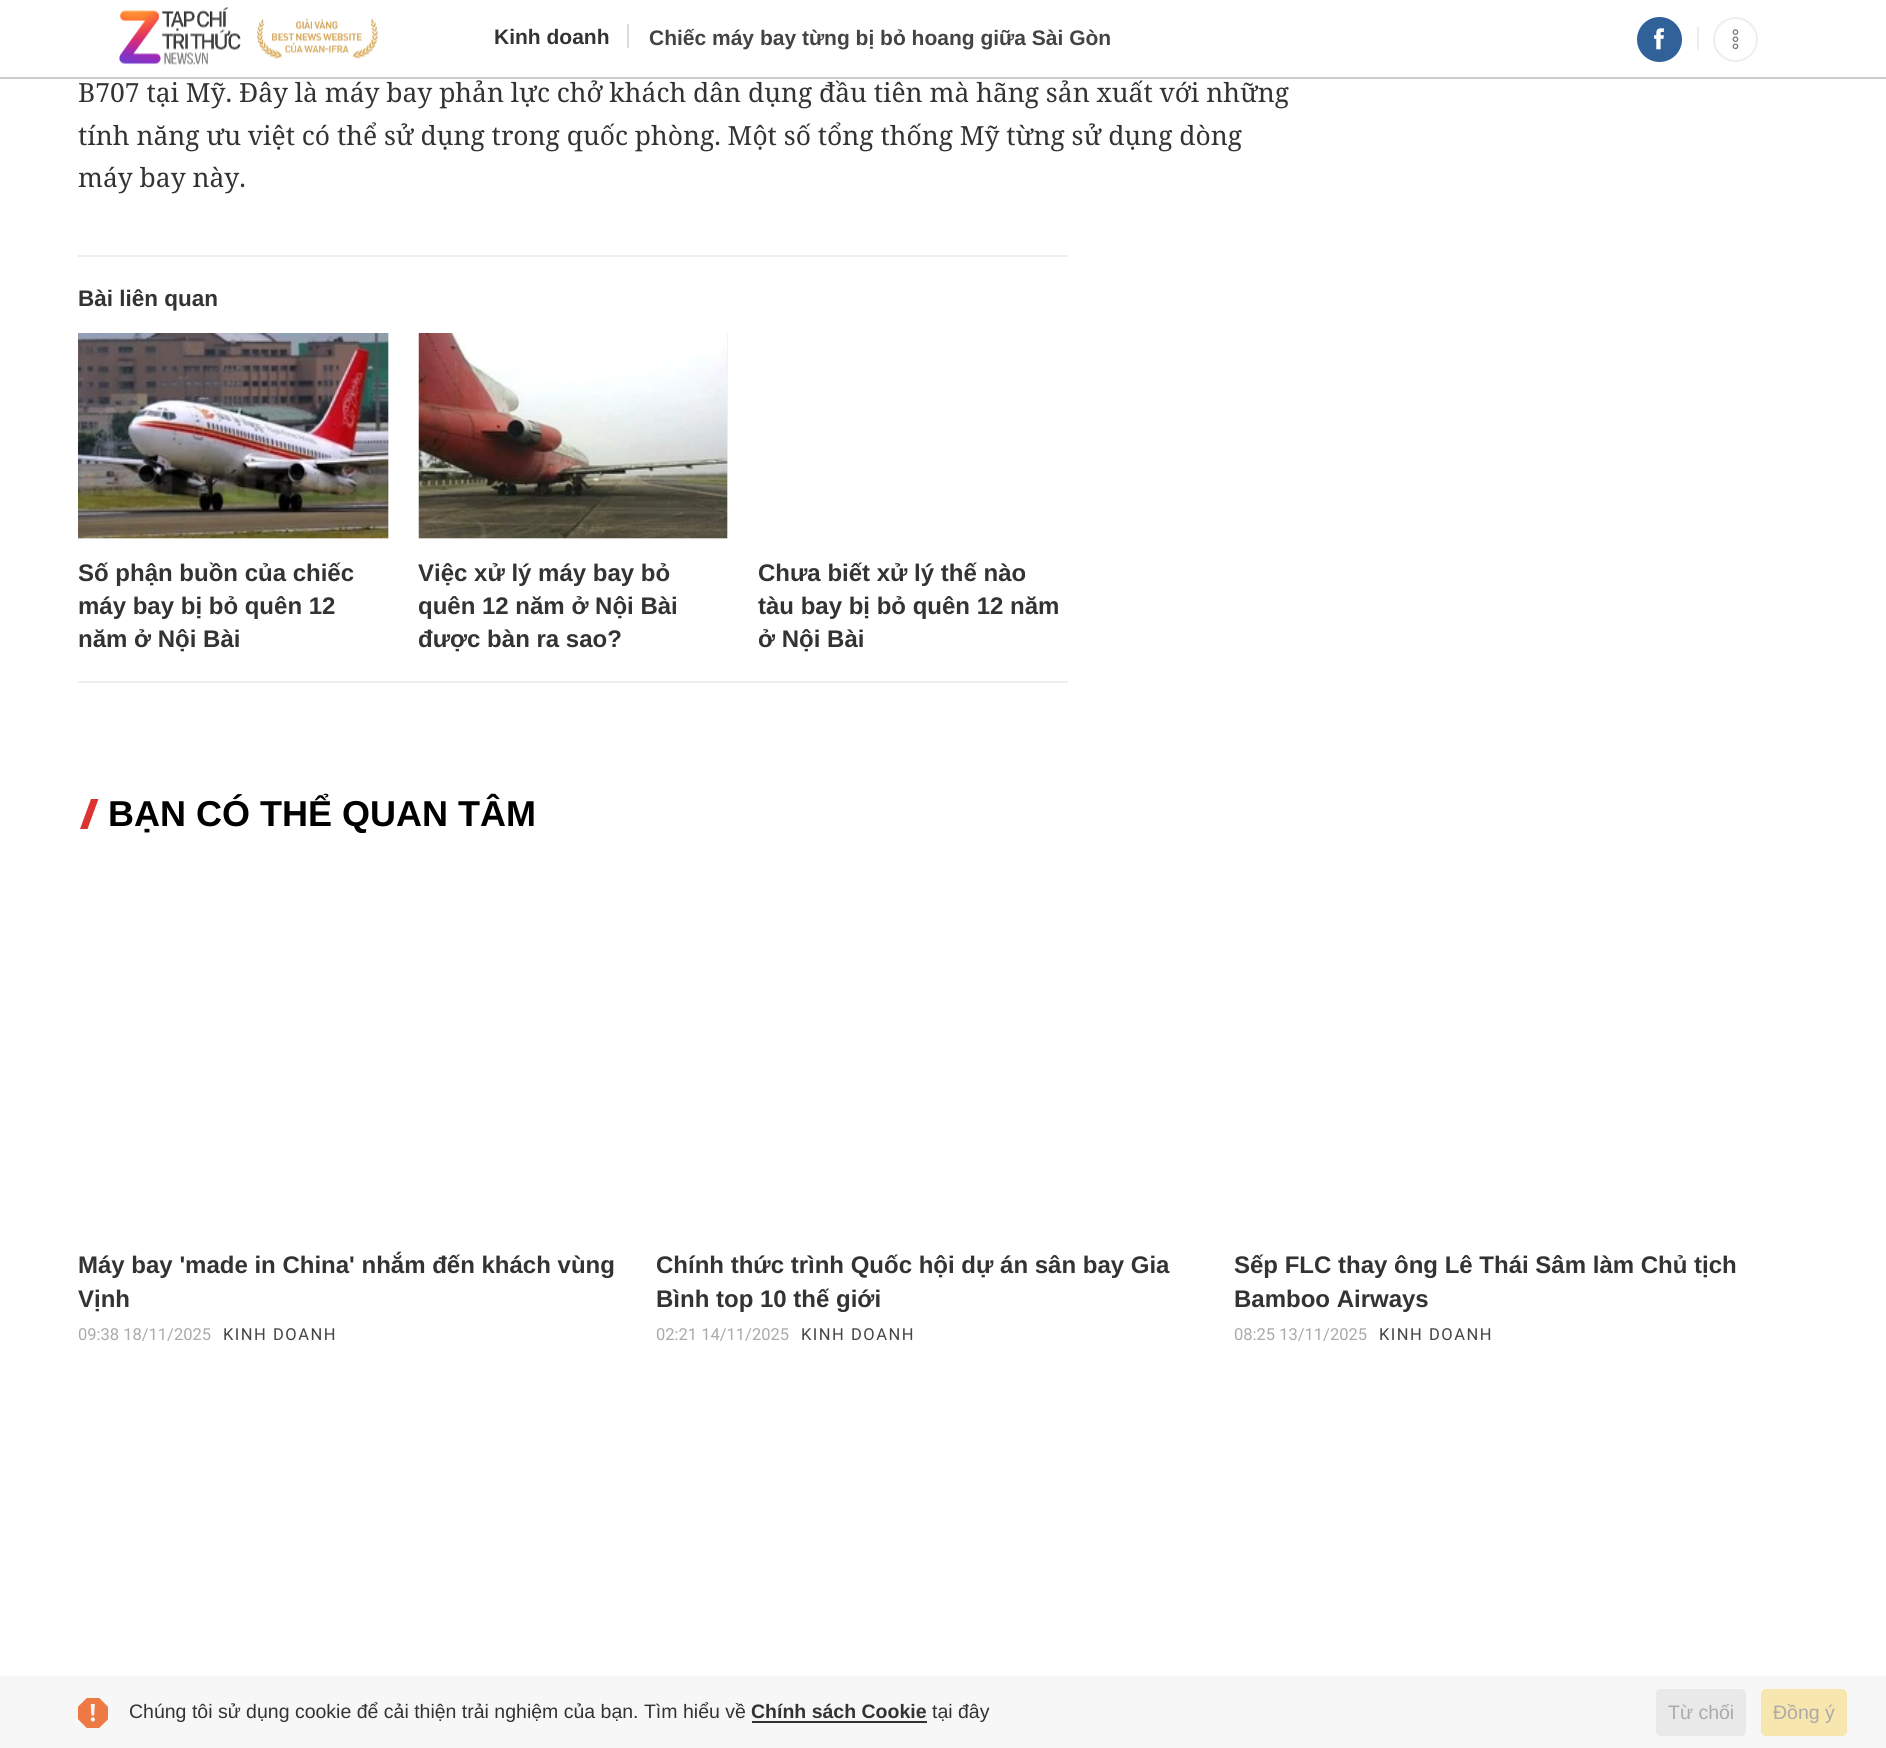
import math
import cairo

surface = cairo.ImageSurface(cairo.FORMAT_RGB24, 1886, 1748)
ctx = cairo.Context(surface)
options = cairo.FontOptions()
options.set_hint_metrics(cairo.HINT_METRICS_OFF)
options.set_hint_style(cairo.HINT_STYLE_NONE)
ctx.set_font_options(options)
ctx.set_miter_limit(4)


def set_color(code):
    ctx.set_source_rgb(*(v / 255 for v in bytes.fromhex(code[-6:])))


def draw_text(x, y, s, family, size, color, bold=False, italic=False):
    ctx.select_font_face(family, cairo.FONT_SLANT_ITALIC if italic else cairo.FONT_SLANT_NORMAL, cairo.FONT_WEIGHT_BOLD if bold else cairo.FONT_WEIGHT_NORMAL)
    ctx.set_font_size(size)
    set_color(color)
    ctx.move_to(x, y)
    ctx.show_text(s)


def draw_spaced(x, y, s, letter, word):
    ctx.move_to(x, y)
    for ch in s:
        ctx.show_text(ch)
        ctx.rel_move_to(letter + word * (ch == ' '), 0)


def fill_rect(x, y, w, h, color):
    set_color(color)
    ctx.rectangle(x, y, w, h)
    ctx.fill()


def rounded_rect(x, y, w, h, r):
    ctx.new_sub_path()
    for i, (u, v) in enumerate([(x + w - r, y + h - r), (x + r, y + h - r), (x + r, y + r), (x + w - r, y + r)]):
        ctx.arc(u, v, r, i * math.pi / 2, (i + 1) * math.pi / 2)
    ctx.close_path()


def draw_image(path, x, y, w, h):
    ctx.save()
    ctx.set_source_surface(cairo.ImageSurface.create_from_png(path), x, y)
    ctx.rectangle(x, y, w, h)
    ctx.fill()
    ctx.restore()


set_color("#ffffff")
ctx.paint()
fill_rect(0, 77, 1886, 2, "#cccccc")
draw_image("assets/img1.png", 119, 7, 259, 58)
draw_text(494, 44, "Kinh doanh", "Liberation Sans", 21, "#333333", bold=True)
fill_rect(627, 24, 2, 24, "#dddddd")
draw_text(649, 45, "Chiếc máy bay từng bị bỏ hoang giữa Sài Gòn", "Liberation Sans", 21, "#444444", bold=True)
set_color("#306199")
ctx.new_path()
ctx.arc(1659.5, 39.5, 22.5, 0, 2 * math.pi)
ctx.fill()
draw_image("assets/img2.png", 1654, 28, 10, 22)
fill_rect(1697, 27, 2, 23, "#eeeeee")
ctx.arc(1735.5, 39.5, 21.5, 0, 2 * math.pi)
ctx.stroke()
draw_image("assets/img3.png", 1732, 29, 7, 21)
draw_text(78, 102, "B707 tại Mỹ. Đây là máy bay phản lực chở khách dân dụng đầu tiên mà hãng sản xuất với những", "Noto Serif", 26.4, "#333333")
draw_text(78, 145, "tính năng ưu việt có thể sử dụng trong quốc phòng. Một số tổng thống Mỹ từng sử dụng dòng", "Noto Serif", 26.4, "#333333")
draw_text(78, 187, "máy bay này.", "Noto Serif", 26.4, "#333333")
fill_rect(78, 255, 990, 2, "#eeeeee")
fill_rect(78, 681, 990, 2, "#eeeeee")
draw_text(78, 306, "Bài liên quan", "Liberation Sans", 22.5, "#333333", bold=True)
fill_rect(78, 333, 311, 206, "#f1f1f1")
draw_image("assets/img4.png", 78, 333, 311, 206)
draw_text(78, 581, "Số phận buồn của chiếc", "Liberation Sans", 24, "#333333", bold=True)
draw_text(78, 614, "máy bay bị bỏ quên 12", "Liberation Sans", 24, "#333333", bold=True)
draw_text(78, 647, "năm ở Nội Bài", "Liberation Sans", 24, "#333333", bold=True)
fill_rect(419, 333, 309, 206, "#f1f1f1")
draw_image("assets/img5.png", 418, 333, 310, 206)
draw_text(418, 581, "Việc xử lý máy bay bỏ", "Liberation Sans", 24, "#333333", bold=True)
draw_text(418, 614, "quên 12 năm ở Nội Bài", "Liberation Sans", 24, "#333333", bold=True)
draw_text(418, 647, "được bàn ra sao?", "Liberation Sans", 24, "#333333", bold=True)
draw_text(758, 581, "Chưa biết xử lý thế nào", "Liberation Sans", 24, "#333333", bold=True)
draw_text(758, 614, "tàu bay bị bỏ quên 12 năm", "Liberation Sans", 24, "#333333", bold=True)
draw_text(758, 647, "ở Nội Bài", "Liberation Sans", 24, "#333333", bold=True)
set_color("#dd3333")
ctx.new_path()
ctx.move_to(91, 799)
ctx.line_to(98.5, 799)
ctx.line_to(87.5, 829)
ctx.line_to(80, 829)
ctx.close_path()
ctx.fill()
draw_text(108, 826, "BẠN CÓ THỂ QUAN TÂM", "Liberation Sans", 36, "#000000", bold=True)
draw_text(78, 1273, "Máy bay 'made in China' nhắm đến khách vùng", "Liberation Sans", 24, "#333333", bold=True)
draw_text(78, 1307, "Vịnh", "Liberation Sans", 24, "#333333", bold=True)
draw_text(78, 1340, "09:38 18/11/2025", "Roboto", 16.5, "#aaaaaa")
set_color("#444444")
draw_spaced(223, 1340, "KINH DOANH", 1.5, 0)
draw_text(656, 1273, "Chính thức trình Quốc hội dự án sân bay Gia", "Liberation Sans", 24, "#333333", bold=True)
draw_text(656, 1307, "Bình top 10 thế giới", "Liberation Sans", 24, "#333333", bold=True)
draw_text(656, 1340, "02:21 14/11/2025", "Roboto", 16.5, "#aaaaaa")
set_color("#444444")
draw_spaced(801, 1340, "KINH DOANH", 1.5, 0)
draw_text(1234, 1273, "Sếp FLC thay ông Lê Thái Sâm làm Chủ tịch", "Liberation Sans", 24, "#333333", bold=True)
draw_text(1234, 1307, "Bamboo Airways", "Liberation Sans", 24, "#333333", bold=True)
draw_text(1234, 1340, "08:25 13/11/2025", "Roboto", 16.5, "#aaaaaa")
set_color("#444444")
draw_spaced(1379, 1340, "KINH DOANH", 1.5, 0)
fill_rect(0, 1676, 1886, 72, "#f7f7f7")
draw_image("assets/img6.png", 78, 1698, 30, 30)
draw_text(129, 1718, "Chúng tôi sử dụng cookie để cải thiện trải nghiệm của bạn. Tìm hiểu về", "Liberation Sans", 19.5, "#333333")
draw_text(751, 1718, "Chính sách Cookie", "Liberation Sans", 19.5, "#333333", bold=True)
fill_rect(752, 1721, 175, 2, "#333333")
draw_text(932, 1718, "tại đây", "Liberation Sans", 19.5, "#333333")
set_color("#e9e9e9")
rounded_rect(1656, 1689, 90, 47, 5)
ctx.fill()
draw_text(1668, 1719, "Từ chối", "Liberation Sans", 19.5, "#aaaaaa")
set_color("#f7e6ae")
rounded_rect(1761, 1689, 86, 47, 5)
ctx.fill()
draw_text(1773, 1719, "Đồng ý", "Liberation Sans", 19.5, "#aaaaaa")
surface.write_to_png("output.png")
